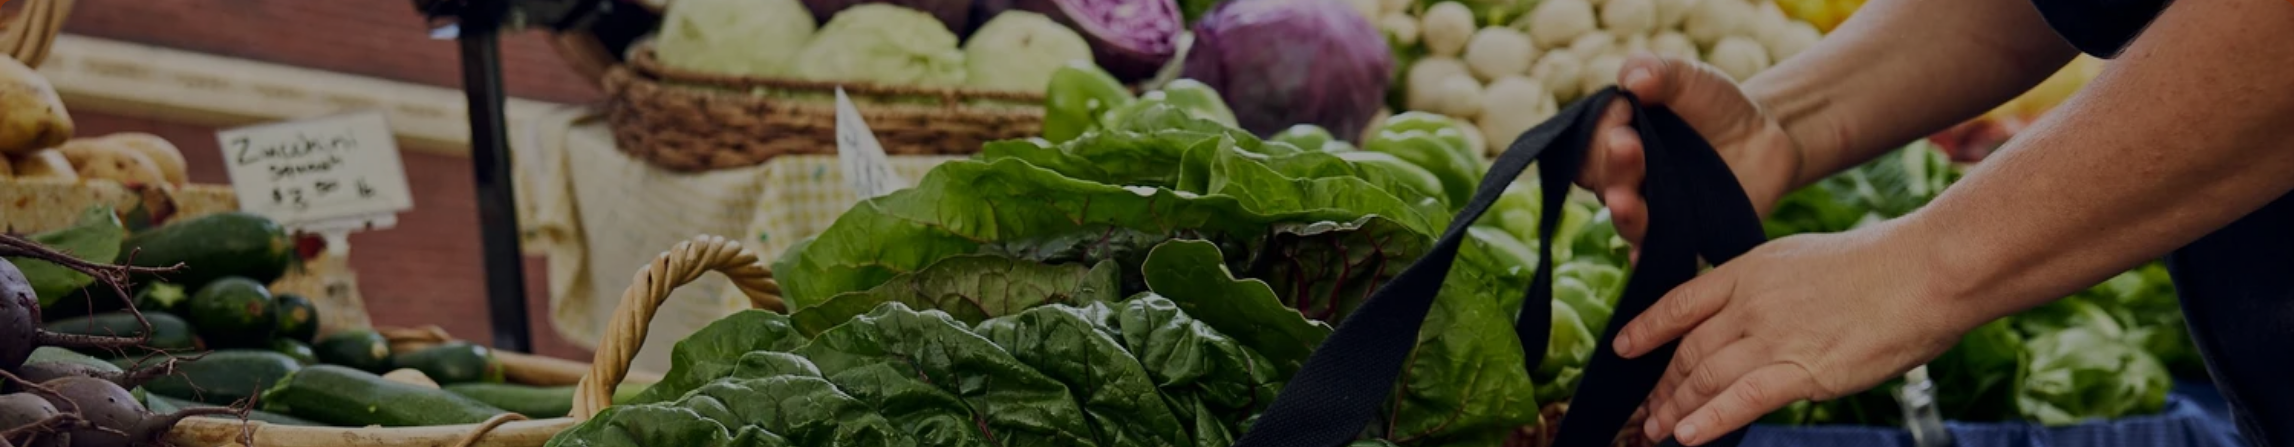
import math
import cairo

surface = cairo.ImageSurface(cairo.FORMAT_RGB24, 2294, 447)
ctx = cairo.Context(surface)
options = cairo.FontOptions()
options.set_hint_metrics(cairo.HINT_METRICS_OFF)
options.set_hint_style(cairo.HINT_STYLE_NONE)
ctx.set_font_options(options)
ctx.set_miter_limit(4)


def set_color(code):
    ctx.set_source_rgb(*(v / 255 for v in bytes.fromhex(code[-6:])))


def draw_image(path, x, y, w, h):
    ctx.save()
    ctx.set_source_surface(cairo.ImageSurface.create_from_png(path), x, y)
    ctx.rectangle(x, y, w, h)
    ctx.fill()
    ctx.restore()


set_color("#742f12")
ctx.paint()
draw_image("assets/img1.png", 0, 0, 2294, 447)
surface.write_to_png("output.png")
